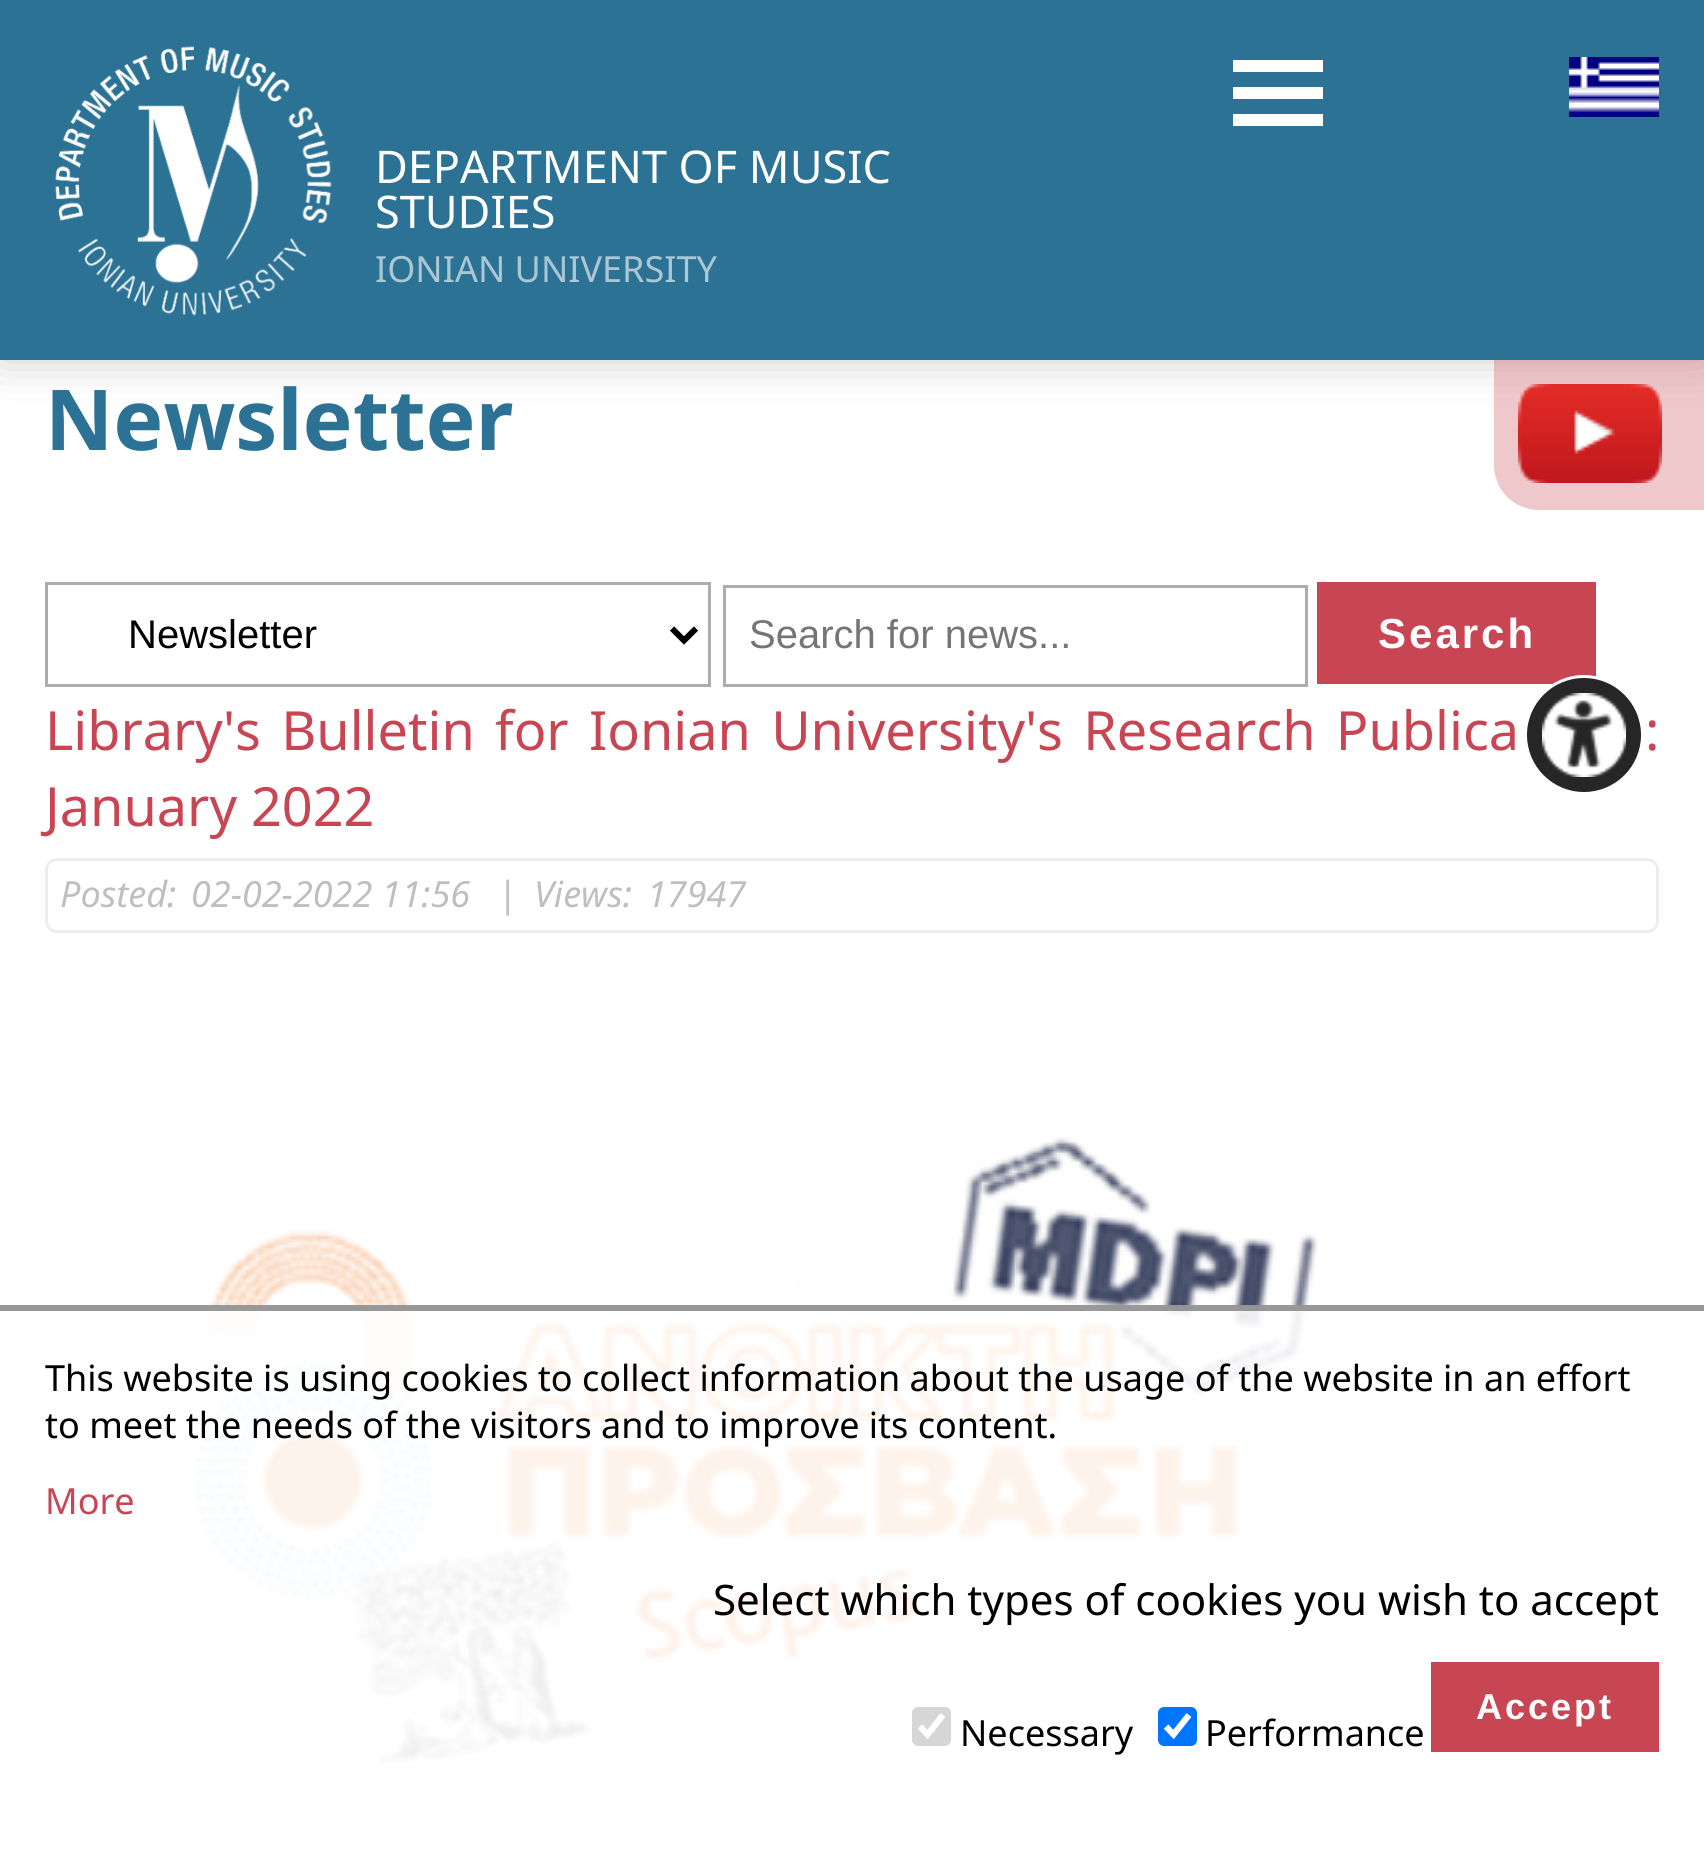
import math
import cairo

surface = cairo.ImageSurface(cairo.FORMAT_RGB24, 1704, 1859)
ctx = cairo.Context(surface)
options = cairo.FontOptions()
options.set_hint_metrics(cairo.HINT_METRICS_OFF)
options.set_hint_style(cairo.HINT_STYLE_NONE)
ctx.set_font_options(options)
ctx.set_miter_limit(4)


def set_color(code):
    ctx.set_source_rgb(*(v / 255 for v in bytes.fromhex(code[-6:])))


def draw_text(x, y, s, family, size, color, bold=False, italic=False):
    ctx.select_font_face(family, cairo.FONT_SLANT_ITALIC if italic else cairo.FONT_SLANT_NORMAL, cairo.FONT_WEIGHT_BOLD if bold else cairo.FONT_WEIGHT_NORMAL)
    ctx.set_font_size(size)
    set_color(color)
    ctx.move_to(x, y)
    ctx.show_text(s)


def draw_spaced(x, y, s, letter, word):
    ctx.move_to(x, y)
    for ch in s:
        ctx.show_text(ch)
        ctx.rel_move_to(letter + word * (ch == ' '), 0)


def fill_rect(x, y, w, h, color):
    set_color(color)
    ctx.rectangle(x, y, w, h)
    ctx.fill()


def rounded_rect(x, y, w, h, r):
    ctx.new_sub_path()
    for i, (u, v) in enumerate([(x + w - r, y + h - r), (x + r, y + h - r), (x + r, y + r), (x + w - r, y + r)]):
        ctx.arc(u, v, r, i * math.pi / 2, (i + 1) * math.pi / 2)
    ctx.close_path()


def draw_shadow(x, y, w, h, r, blur, alpha):
    ctx.push_group_with_content(cairo.CONTENT_ALPHA)
    ctx.set_operator(cairo.OPERATOR_SOURCE)
    for i in range(15, -16, -2):
        e = blur * i / 6
        if min(w, h) + 2 * e > 0:
            ctx.set_source_rgba(0, 0, 0, alpha * math.erfc((i - 1) / 8.5) / 2)
            rounded_rect(x - e, y - e, w + 2 * e, h + 2 * e, max(0, min(r + e + blur * .6, min(w, h) / 2 + e)))
            ctx.fill()
    ctx.mask(ctx.pop_group())


def draw_image(path, x, y, w, h):
    ctx.save()
    ctx.set_source_surface(cairo.ImageSurface.create_from_png(path), x, y)
    ctx.rectangle(x, y, w, h)
    ctx.fill()
    ctx.restore()


set_color("#ffffff")
ctx.paint()
set_color("#000000")
draw_shadow(0, 0, 1704, 360, 0, 22.5, 0.2)
fill_rect(0, 0, 1704, 360, "#2c7294")
draw_image("assets/img1.png", 1569, 57, 90, 60)
fill_rect(1233, 60, 90, 12, "#ffffff")
fill_rect(1233, 87, 90, 12, "#ffffff")
fill_rect(1233, 114, 90, 12, "#ffffff")
draw_image("assets/img2.png", 55, 46, 277, 270)
draw_text(375, 183, "DEPARTMENT OF MUSIC", "Noto Sans", 45, "#ffffff")
draw_text(375, 228, "STUDIES", "Noto Sans", 45, "#ffffff")
draw_text(375, 282, "IONIAN UNIVERSITY", "Noto Sans", 36, "#abc7d4")
ctx.set_source_rgba(0.784, 0.275, 0.314, 0.3)
ctx.new_path()
ctx.move_to(1494, 360)
ctx.line_to(1704, 360)
ctx.line_to(1704, 510)
ctx.line_to(1539, 510)
ctx.curve_to(1514, 510, 1494, 490, 1494, 465)
ctx.close_path()
ctx.fill()
draw_image("assets/img3.png", 1518, 384, 144, 99)
draw_text(45, 450, "Newsletter", "Noto Sans", 84, "#2c7294", bold=True)
ctx.rectangle(46.5, 583.5, 663, 102)
set_color("#adadad")
ctx.set_line_width(3)
ctx.stroke()
ctx.new_path()
ctx.move_to(672, 628.5)
ctx.line_to(684, 640.5)
ctx.line_to(696, 628.5)
set_color("#000000")
ctx.set_line_width(6)
ctx.stroke()
draw_text(128, 648, "Newsletter", "Liberation Sans", 40, "#000000")
ctx.rectangle(724.5, 586.5, 582, 99)
set_color("#adadad")
ctx.set_line_width(3)
ctx.stroke()
draw_text(749, 648, "Search for news...", "Liberation Sans", 40, "#757575")
fill_rect(1317, 582, 279, 102, "#c84553")
ctx.select_font_face("Liberation Sans", cairo.FONT_SLANT_NORMAL, cairo.FONT_WEIGHT_BOLD)
ctx.set_font_size(42)
set_color("#ffffff")
draw_spaced(1378, 648, "Search", 3, 0)
ctx.select_font_face("Noto Sans")
ctx.set_font_size(54)
set_color("#c84553")
draw_spaced(45, 750, "Library's Bulletin for Ionian University's Research Publica", 0, 6.25)
draw_spaced(1645, 750, ":", 0, 6.25)
draw_text(45, 826, "January 2022", "Noto Sans", 54, "#c84553")
rounded_rect(46.5, 859.5, 1611, 72, 10.5)
set_color("#ededed")
ctx.stroke()
draw_text(60, 907, "Posted:", "Noto Sans", 36, "#bfbfbf", italic=True)
draw_text(191, 907, "02-02-2022 11:56", "Noto Sans", 36, "#bfbfbf", italic=True)
draw_text(497, 907, "|", "Noto Sans", 36, "#bfbfbf", italic=True)
draw_text(534, 907, "Views:", "Noto Sans", 36, "#bfbfbf", italic=True)
draw_text(647, 907, "17947", "Noto Sans", 36, "#bfbfbf", italic=True)
draw_image("assets/img4.png", 194, 1137, 1124, 631)
set_color("#262626")
ctx.arc(1584, 735, 58.5, 0, 2 * math.pi)
ctx.fill_preserve()
set_color("#ffffff")
ctx.stroke()
draw_image("assets/img5.png", 1542, 693, 84, 84)
ctx.set_source_rgba(1, 1, 1, 0.9)
ctx.rectangle(194, 1305, 1115, 463)
ctx.fill()
ctx.set_source_rgba(0.498, 0.498, 0.498, 0.8)
ctx.rectangle(0, 1305, 1704, 6)
ctx.fill()
draw_text(45, 1391, "This website is using cookies to collect information about the usage of the website in an effort", "Noto Sans", 36, "#000000")
draw_text(45, 1438, "to meet the needs of the visitors and to improve its content.", "Noto Sans", 36, "#000000")
draw_text(45, 1514, "More", "Noto Sans", 36, "#c84553")
draw_text(713, 1615, "Select which types of cookies you wish to accept", "Noto Sans", 42, "#000000")
fill_rect(1431, 1662, 228, 90, "#c84553")
ctx.select_font_face("Liberation Sans", cairo.FONT_SLANT_NORMAL, cairo.FONT_WEIGHT_BOLD)
ctx.set_font_size(36)
set_color("#ffffff")
draw_spaced(1476, 1719, "Accept", 3, 0)
set_color("#d6d6d6")
rounded_rect(912, 1707, 39, 39, 6)
ctx.fill()
ctx.new_path()
ctx.move_to(920, 1726.5)
ctx.line_to(927.5, 1734.5)
ctx.line_to(943, 1715)
set_color("#ffffff")
ctx.set_line_width(6.2)
ctx.stroke()
draw_text(960, 1746, "Necessary", "Noto Sans", 36, "#000000")
set_color("#0075ff")
rounded_rect(1158, 1707, 39, 39, 6)
ctx.fill()
ctx.new_path()
ctx.move_to(1166, 1726.5)
ctx.line_to(1173.5, 1734.5)
ctx.line_to(1189, 1715)
set_color("#ffffff")
ctx.stroke()
draw_text(1205, 1746, "Performance", "Noto Sans", 36, "#000000")
surface.write_to_png("output.png")
